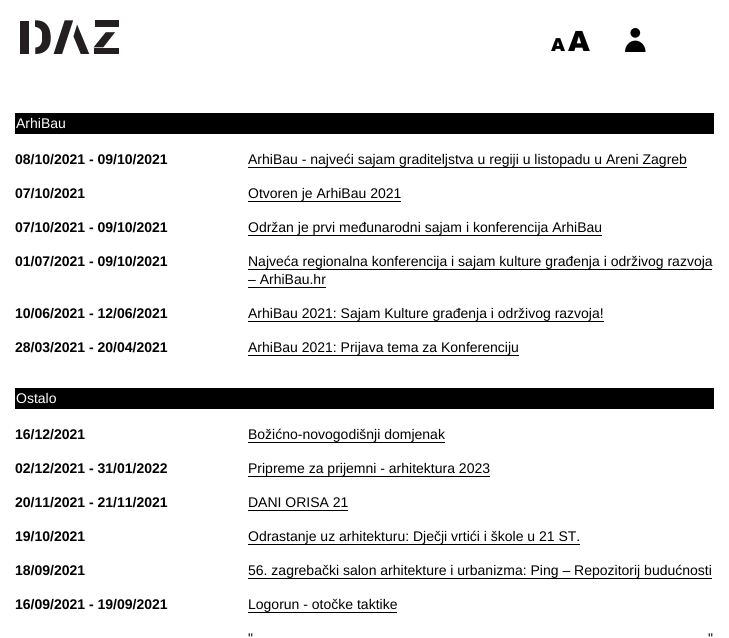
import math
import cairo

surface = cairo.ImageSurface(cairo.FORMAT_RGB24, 729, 638)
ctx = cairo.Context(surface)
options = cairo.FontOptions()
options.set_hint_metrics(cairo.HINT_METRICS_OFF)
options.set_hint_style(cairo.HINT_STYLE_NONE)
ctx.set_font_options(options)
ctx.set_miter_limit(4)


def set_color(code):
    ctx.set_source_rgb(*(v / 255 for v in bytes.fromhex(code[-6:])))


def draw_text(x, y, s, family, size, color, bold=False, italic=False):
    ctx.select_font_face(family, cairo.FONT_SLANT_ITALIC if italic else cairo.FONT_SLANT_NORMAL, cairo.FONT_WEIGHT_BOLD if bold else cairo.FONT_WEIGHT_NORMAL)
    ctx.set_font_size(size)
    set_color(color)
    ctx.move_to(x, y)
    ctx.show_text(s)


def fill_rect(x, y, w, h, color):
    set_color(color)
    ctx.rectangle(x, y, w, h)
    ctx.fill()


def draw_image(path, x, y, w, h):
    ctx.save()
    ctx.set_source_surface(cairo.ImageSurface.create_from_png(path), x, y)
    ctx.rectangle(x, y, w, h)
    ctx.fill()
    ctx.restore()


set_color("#ffffff")
ctx.paint()
draw_image("assets/img1.png", 20, 20, 99, 34)
draw_image("assets/img2.png", 551, 30, 39, 21)
draw_image("assets/img3.png", 625, 28, 21, 24)
fill_rect(15, 113, 699, 21, "#000000")
draw_text(16, 128, "ArhiBau", "Liberation Sans", 14, "#ffffff")
draw_text(15, 164, "08/10/2021 - 09/10/2021", "Liberation Sans", 14, "#000000", bold=True)
draw_text(248, 164, "ArhiBau - najveći sajam graditeljstva u regiji u listopadu u Areni Zagreb", "Liberation Sans", 14, "#000000")
fill_rect(248, 167, 439, 1, "#000000")
draw_text(15, 198, "07/10/2021", "Liberation Sans", 14, "#000000", bold=True)
draw_text(248, 198, "Otvoren je ArhiBau 2021", "Liberation Sans", 14, "#000000")
fill_rect(248, 201, 153, 1, "#000000")
draw_text(15, 232, "07/10/2021 - 09/10/2021", "Liberation Sans", 14, "#000000", bold=True)
draw_text(248, 232, "Održan je prvi međunarodni sajam i konferencija ArhiBau", "Liberation Sans", 14, "#000000")
fill_rect(248, 235, 354, 1, "#000000")
draw_text(15, 266, "01/07/2021 - 09/10/2021", "Liberation Sans", 14, "#000000", bold=True)
draw_text(248, 266, "Najveća regionalna konferencija i sajam kulture građenja i održivog razvoja", "Liberation Sans", 14, "#000000")
fill_rect(248, 269, 464, 1, "#000000")
draw_text(248, 284, "– ArhiBau.hr", "Liberation Sans", 14, "#000000")
fill_rect(248, 287, 78, 1, "#000000")
draw_text(15, 318, "10/06/2021 - 12/06/2021", "Liberation Sans", 14, "#000000", bold=True)
draw_text(248, 318, "ArhiBau 2021: Sajam Kulture građenja i održivog razvoja!", "Liberation Sans", 14, "#000000")
fill_rect(248, 321, 356, 1, "#000000")
draw_text(15, 352, "28/03/2021 - 20/04/2021", "Liberation Sans", 14, "#000000", bold=True)
draw_text(248, 352, "ArhiBau 2021: Prijava tema za Konferenciju", "Liberation Sans", 14, "#000000")
fill_rect(248, 355, 271, 1, "#000000")
fill_rect(15, 388, 699, 21, "#000000")
draw_text(16, 403, "Ostalo", "Liberation Sans", 14, "#ffffff")
draw_text(15, 439, "16/12/2021", "Liberation Sans", 14, "#000000", bold=True)
draw_text(248, 439, "Božićno-novogodišnji domjenak", "Liberation Sans", 14, "#000000")
fill_rect(248, 442, 197, 1, "#000000")
draw_text(15, 473, "02/12/2021 - 31/01/2022", "Liberation Sans", 14, "#000000", bold=True)
draw_text(248, 473, "Pripreme za prijemni - arhitektura 2023", "Liberation Sans", 14, "#000000")
fill_rect(248, 476, 242, 1, "#000000")
draw_text(15, 507, "20/11/2021 - 21/11/2021", "Liberation Sans", 14, "#000000", bold=True)
draw_text(248, 507, "DANI ORISA 21", "Liberation Sans", 14, "#000000")
fill_rect(248, 510, 100, 1, "#000000")
draw_text(15, 541, "19/10/2021", "Liberation Sans", 14, "#000000", bold=True)
draw_text(248, 541, "Odrastanje uz arhitekturu: Dječji vrtići i škole u 21 ST.", "Liberation Sans", 14, "#000000")
fill_rect(248, 544, 332, 1, "#000000")
draw_text(15, 575, "18/09/2021", "Liberation Sans", 14, "#000000", bold=True)
draw_text(248, 575, "56. zagrebački salon arhitekture i urbanizma: Ping – Repozitorij budućnosti", "Liberation Sans", 14, "#000000")
fill_rect(248, 578, 464, 1, "#000000")
draw_text(15, 609, "16/09/2021 - 19/09/2021", "Liberation Sans", 14, "#000000", bold=True)
draw_text(248, 609, "Logorun - otočke taktike", "Liberation Sans", 14, "#000000")
fill_rect(248, 612, 149, 1, "#000000")
draw_text(248, 643, "\"", "Liberation Sans", 14, "#000000")
draw_text(708, 643, "\"", "Liberation Sans", 14, "#000000")
surface.write_to_png("output.png")
